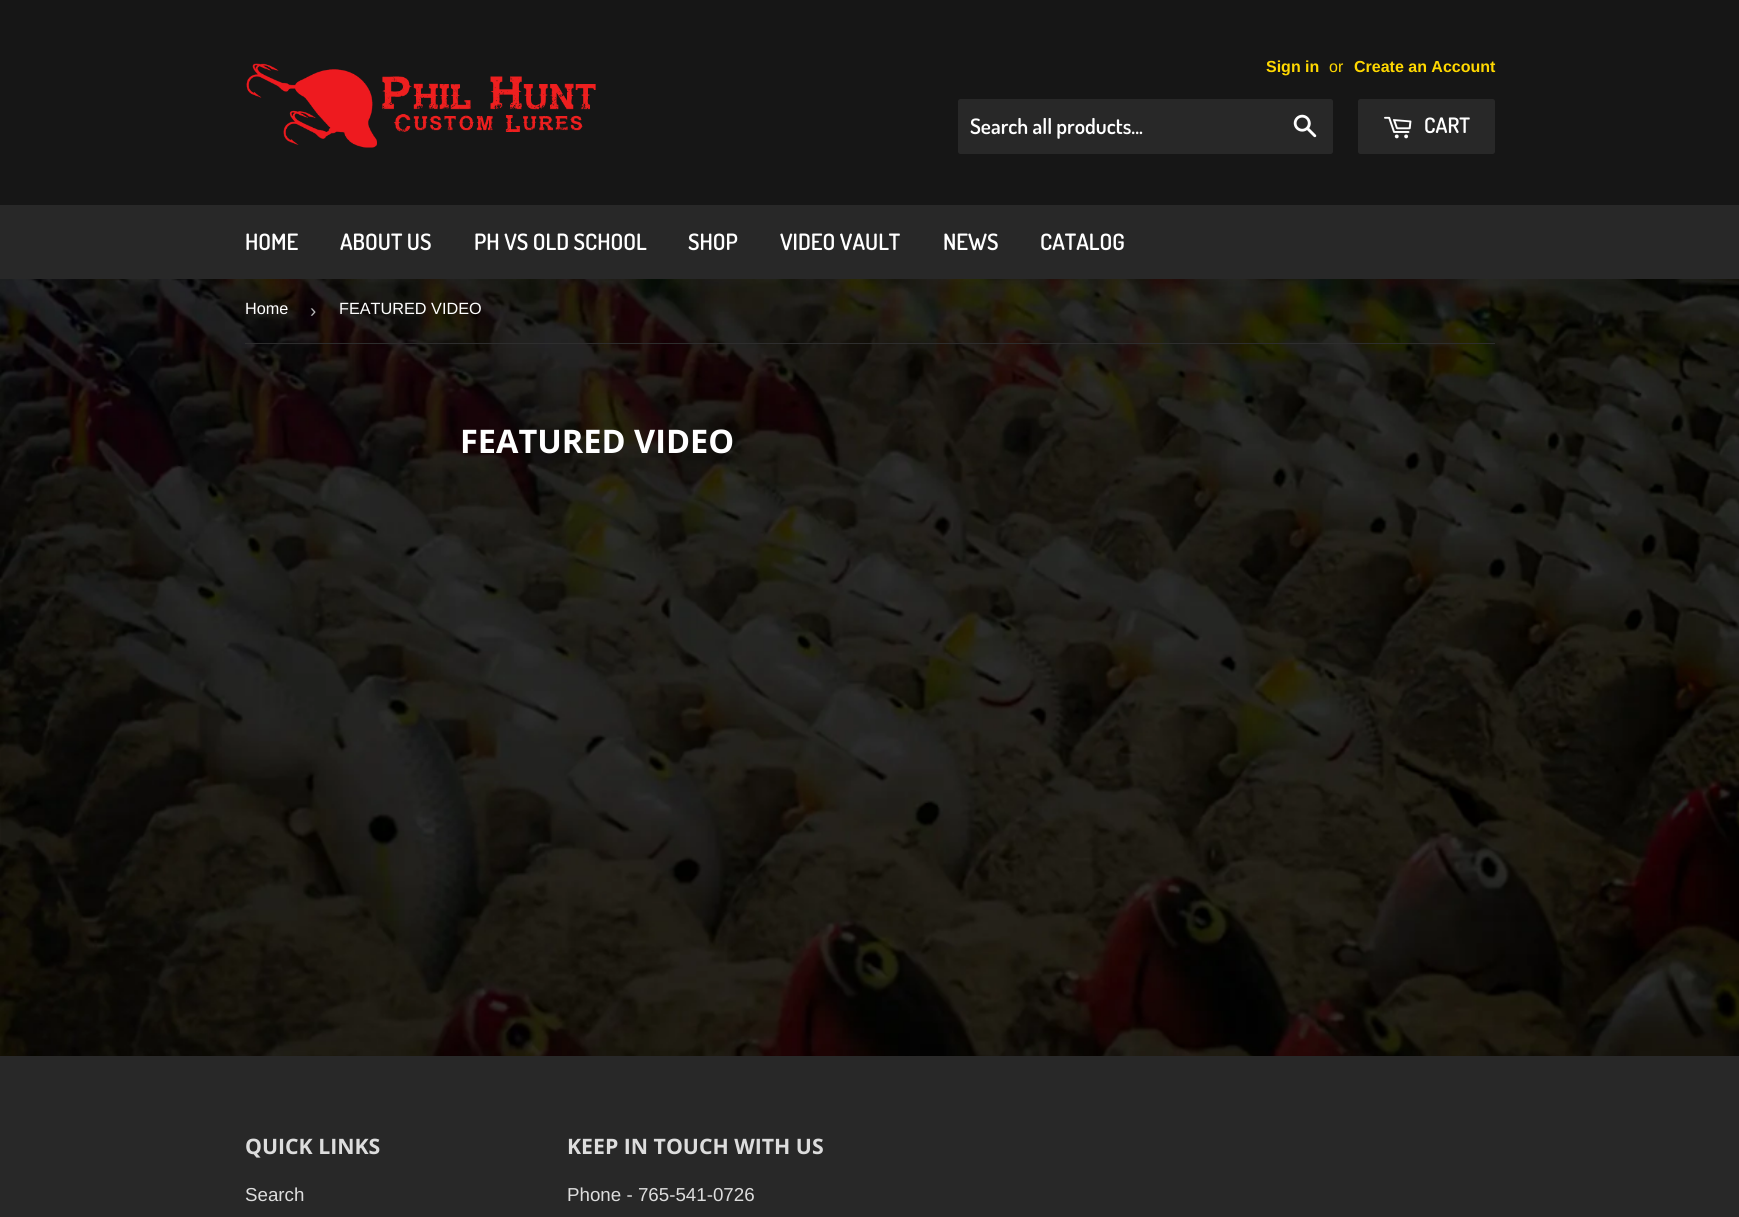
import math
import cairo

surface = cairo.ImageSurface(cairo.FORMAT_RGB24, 1739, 1217)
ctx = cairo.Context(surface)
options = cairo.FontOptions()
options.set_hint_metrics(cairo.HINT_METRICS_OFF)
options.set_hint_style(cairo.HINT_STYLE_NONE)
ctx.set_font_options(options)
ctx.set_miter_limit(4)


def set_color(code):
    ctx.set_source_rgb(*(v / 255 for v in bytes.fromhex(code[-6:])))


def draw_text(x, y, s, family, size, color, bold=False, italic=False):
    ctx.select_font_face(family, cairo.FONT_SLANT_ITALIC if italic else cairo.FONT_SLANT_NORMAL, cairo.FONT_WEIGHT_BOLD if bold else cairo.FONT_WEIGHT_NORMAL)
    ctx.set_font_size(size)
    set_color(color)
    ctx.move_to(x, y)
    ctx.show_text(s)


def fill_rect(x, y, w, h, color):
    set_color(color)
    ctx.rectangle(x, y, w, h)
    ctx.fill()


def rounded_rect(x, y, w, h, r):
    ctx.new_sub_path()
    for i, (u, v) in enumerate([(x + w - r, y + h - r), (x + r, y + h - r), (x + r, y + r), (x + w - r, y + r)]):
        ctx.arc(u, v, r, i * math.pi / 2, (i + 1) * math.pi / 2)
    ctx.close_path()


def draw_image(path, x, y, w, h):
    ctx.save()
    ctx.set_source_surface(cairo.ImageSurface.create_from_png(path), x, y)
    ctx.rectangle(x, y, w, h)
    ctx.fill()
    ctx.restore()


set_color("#ffffff")
ctx.paint()
draw_image("assets/img1.png", 0, 279, 1739, 777)
fill_rect(0, 0, 1739, 205, "#161616")
draw_image("assets/img2.png", 246, 63, 350, 85)
draw_text(1266, 72, "Sign in", "Liberation Sans", 16, "#ffd800", bold=True)
draw_text(1329, 72, "or", "Liberation Sans", 16, "#ffd800")
draw_text(1354, 72, "Create an Account", "Liberation Sans", 16, "#ffd800", bold=True)
set_color("#282828")
rounded_rect(958, 99, 375, 55, 2.5)
ctx.fill()
draw_text(970, 134, "Search all products...", "Dosis SemiBold", 21.25, "#ffffff")
draw_image("assets/img3.png", 1293, 114, 24, 24)
set_color("#282828")
rounded_rect(1358, 99, 137, 55, 2.5)
ctx.fill()
draw_image("assets/img4.png", 1384, 116, 28, 23)
draw_text(1424, 133, "CART", "Dosis SemiBold", 21.25, "#ffffff")
fill_rect(0, 205, 1739, 74, "#282828")
draw_text(245, 250, "HOME", "Dosis SemiBold", 22.5, "#ffffff")
draw_text(340, 250, "ABOUT US", "Dosis SemiBold", 22.5, "#ffffff")
draw_text(474, 250, "PH VS OLD SCHOOL", "Dosis SemiBold", 22.5, "#ffffff")
draw_text(688, 250, "SHOP", "Dosis SemiBold", 22.5, "#ffffff")
draw_text(780, 250, "VIDEO VAULT", "Dosis SemiBold", 22.5, "#ffffff")
draw_text(943, 250, "NEWS", "Dosis SemiBold", 22.5, "#ffffff")
draw_text(1040, 250, "CATALOG", "Dosis SemiBold", 22.5, "#ffffff")
fill_rect(245, 343, 1250, 1, "#2e2e2e")
draw_text(245, 314, "Home", "Liberation Sans", 16.25, "#ffffff")
draw_text(310, 317, "›", "Liberation Sans", 18.75, "#bbbbbb")
draw_text(339, 314, "FEATURED VIDEO", "Liberation Sans", 16.25, "#ffffff")
draw_text(460, 453, "FEATURED VIDEO", "Open Sans", 32.5, "#ffffff", bold=True)
fill_rect(0, 1056, 1739, 161, "#282828")
draw_text(245, 1154, "QUICK LINKS", "Open Sans", 21.25, "#dddddd", bold=True)
draw_text(245, 1201, "Search", "Liberation Sans", 18.75, "#dddddd")
draw_text(567, 1154, "KEEP IN TOUCH WITH US", "Open Sans", 21.25, "#dddddd", bold=True)
draw_text(567, 1201, "Phone - 765-541-0726", "Liberation Sans", 18.75, "#dddddd")
surface.write_to_png("output.png")
